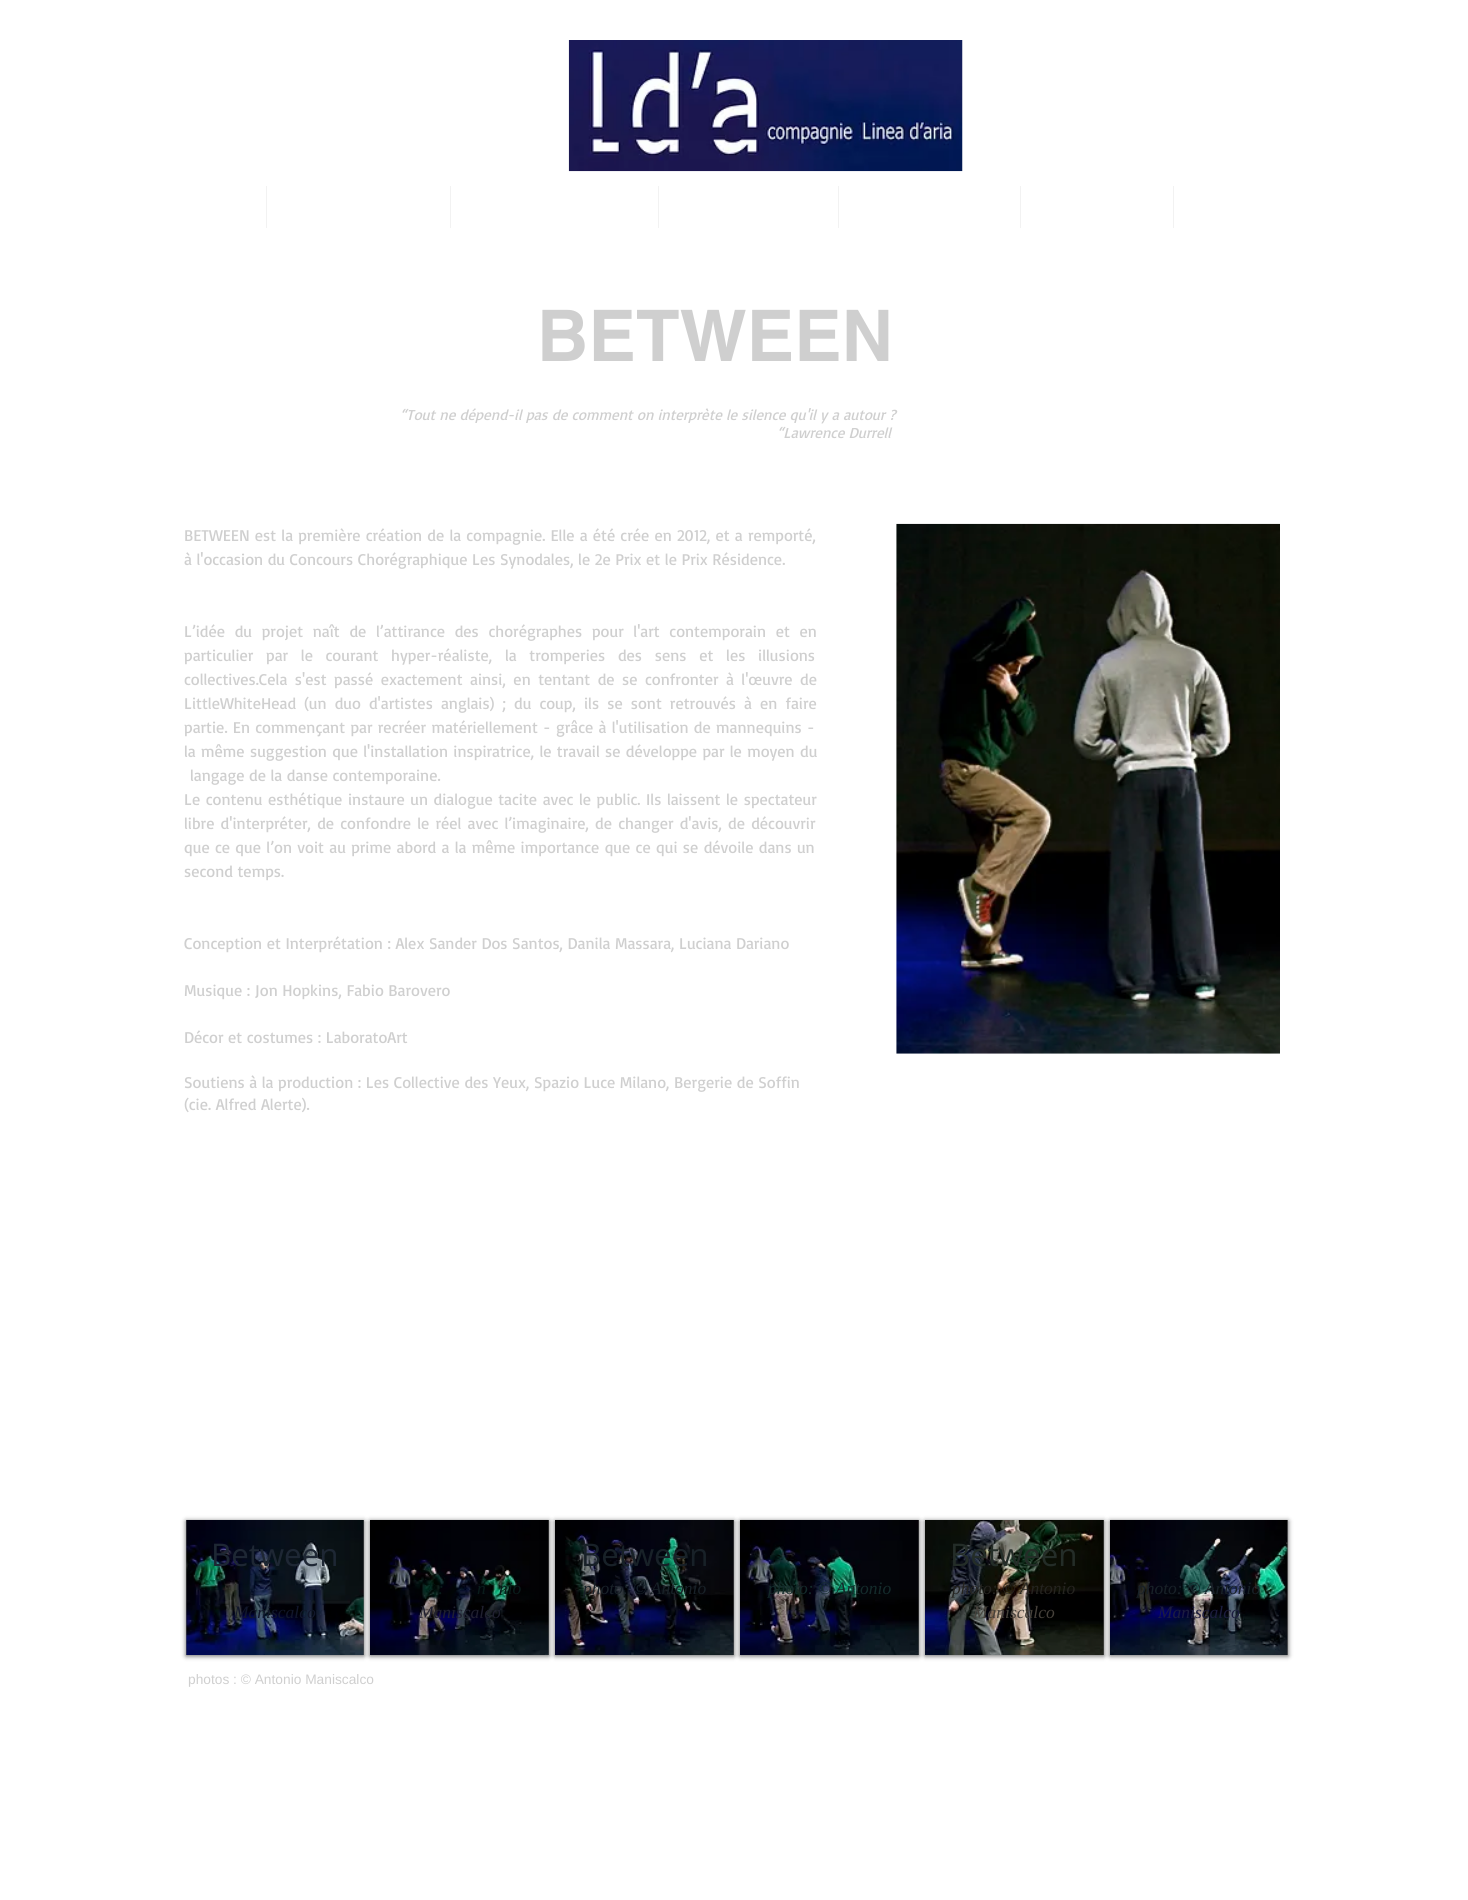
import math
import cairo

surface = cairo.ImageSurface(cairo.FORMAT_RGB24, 1468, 1900)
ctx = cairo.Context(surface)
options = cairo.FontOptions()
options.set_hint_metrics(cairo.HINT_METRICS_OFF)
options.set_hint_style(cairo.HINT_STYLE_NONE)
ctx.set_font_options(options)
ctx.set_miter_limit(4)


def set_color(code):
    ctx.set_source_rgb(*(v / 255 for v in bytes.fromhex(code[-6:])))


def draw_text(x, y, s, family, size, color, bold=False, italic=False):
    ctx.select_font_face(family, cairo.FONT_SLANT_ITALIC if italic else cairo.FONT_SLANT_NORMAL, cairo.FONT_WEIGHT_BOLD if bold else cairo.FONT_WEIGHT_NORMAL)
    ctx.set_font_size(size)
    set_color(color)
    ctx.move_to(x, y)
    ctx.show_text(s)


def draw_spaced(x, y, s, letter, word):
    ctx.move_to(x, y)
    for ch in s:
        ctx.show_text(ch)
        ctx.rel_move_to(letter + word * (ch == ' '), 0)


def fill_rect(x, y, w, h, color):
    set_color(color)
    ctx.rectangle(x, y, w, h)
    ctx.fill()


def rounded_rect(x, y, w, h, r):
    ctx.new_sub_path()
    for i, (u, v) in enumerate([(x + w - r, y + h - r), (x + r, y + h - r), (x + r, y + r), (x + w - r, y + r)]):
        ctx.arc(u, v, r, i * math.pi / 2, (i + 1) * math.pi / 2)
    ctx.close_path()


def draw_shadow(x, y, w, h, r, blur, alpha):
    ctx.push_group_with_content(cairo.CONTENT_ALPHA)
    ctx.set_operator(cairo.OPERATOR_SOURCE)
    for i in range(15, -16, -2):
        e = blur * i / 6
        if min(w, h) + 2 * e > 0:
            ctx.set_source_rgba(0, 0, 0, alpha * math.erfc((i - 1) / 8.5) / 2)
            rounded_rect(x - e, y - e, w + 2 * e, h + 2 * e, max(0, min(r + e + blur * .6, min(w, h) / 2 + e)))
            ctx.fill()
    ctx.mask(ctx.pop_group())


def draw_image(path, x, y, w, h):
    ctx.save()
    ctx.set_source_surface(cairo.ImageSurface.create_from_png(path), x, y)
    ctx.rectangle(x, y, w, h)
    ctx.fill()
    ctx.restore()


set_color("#ffffff")
ctx.paint()
draw_image("assets/img1.png", 568, 40, 395, 132)
fill_rect(266, 186, 1, 42, "#f2f2f2")
fill_rect(450, 186, 1, 42, "#f2f2f2")
fill_rect(658, 186, 1, 42, "#f2f2f2")
fill_rect(838, 186, 1, 42, "#f2f2f2")
fill_rect(1020, 186, 1, 42, "#f2f2f2")
fill_rect(1173, 186, 1, 42, "#f2f2f2")
draw_text(537, 361, "BETWEEN", "helvetica", 71.25, "#cfcfcf", bold=True)
draw_text(400, 420, "“Tout ne dépend-il pas de comment on interprète le silence qu'il y a autour ?", "Basic", 15, "#cfcfcf", italic=True)
draw_text(777, 438, "“Lawrence Durrell", "Basic", 15, "#cfcfcf", italic=True)
ctx.select_font_face("Basic")
ctx.set_font_size(16.25)
draw_spaced(184, 541, "BETWEEN est la première création de la compagnie. Elle a été crée en 2012, et a remporté,", 0, 0.6)
draw_text(184, 565, "à l'occasion du Concours Chorégraphique Les Synodales, le 2e Prix et le Prix Résidence.", "Basic", 16.25, "#cfcfcf")
draw_spaced(184, 637, "L’idée du projet naît de l’attirance des chorégraphes pour l'art contemporain et en", 0, 5.1)
draw_spaced(184, 661, "particulier par le courant hyper-réaliste, la tromperies des sens et les illusions", 0, 8.1)
draw_spaced(184, 685, "collectives.Cela s'est passé exactement ainsi, en tentant de se confronter à l'œuvre de", 0, 2.9)
draw_spaced(184, 709, "LittleWhiteHead (un duo d'artistes anglais) ; du coup, ils se sont retrouvés à en faire", 0, 3.5)
draw_spaced(184, 733, "partie. En commençant par recréer matériellement - grâce à l'utilisation de mannequins -", 0, 0.75)
draw_spaced(184, 757, "la même suggestion que l'installation inspiratrice, le travail se développe par le moyen du", 0, 0.75)
draw_text(190, 781, "langage de la danse contemporaine.", "Basic", 16.25, "#cfcfcf")
draw_spaced(184, 805, "Le contenu esthétique instaure un dialogue tacite avec le public. Ils laissent le spectateur", 0, 1)
draw_spaced(184, 829, "libre d'interpréter, de confondre le réel avec l’imaginaire, de changer d'avis, de découvrir", 0, 1.6)
draw_spaced(184, 853, "que ce que l’on voit au prime abord a la même importance que ce qui se dévoile dans un", 0, 0.75)
draw_text(184, 877, "second temps.", "Basic", 16.25, "#cfcfcf")
draw_text(184, 949, "Conception et Interprétation : Alex Sander Dos Santos, Danila Massara, Luciana Dariano", "Basic", 16.25, "#cfcfcf")
draw_text(184, 996, "Musique : Jon Hopkins, Fabio Barovero", "Basic", 16.25, "#cfcfcf")
draw_text(184, 1043, "Décor et costumes : LaboratoArt", "Basic", 16.25, "#cfcfcf")
draw_text(184, 1088, "Soutiens à la production : Les Collective des Yeux, Spazio Luce Milano, Bergerie de Soffin", "Basic", 16.25, "#cfcfcf")
draw_text(184, 1110, "(cie. Alfred Alerte).", "Basic", 16.25, "#cfcfcf")
draw_image("assets/img2.png", 896, 523, 384, 531)
set_color("#000000")
draw_shadow(186, 1521, 178, 135, 0, 2.5, 0.6)
fill_rect(186, 1520, 178, 135, "#606060")
draw_image("assets/img3.png", 186, 1520, 178, 135)
draw_text(211, 1566, "Between", "Open Sans", 31.25, "#1e2734")
draw_text(234, 1618, "Maniscalco", "Liberation Serif", 17.5, "#11172b", italic=True)
set_color("#000000")
draw_shadow(370, 1521, 179, 135, 0, 2.5, 0.6)
fill_rect(548, 1520, 1, 135, "#606060")
draw_image("assets/img4.png", 370, 1520, 179, 135)
draw_text(438, 1594, ":", "Liberation Serif", 17.5, "#091c1b", italic=True)
draw_text(477, 1594, "n", "Liberation Serif", 17.5, "#091c1b", italic=True)
draw_text(499, 1594, "nio", "Liberation Serif", 17.5, "#091c1b", italic=True)
draw_text(419, 1618, "Maniscalco", "Liberation Serif", 17.5, "#202030", italic=True)
set_color("#000000")
draw_shadow(555, 1521, 179, 135, 0, 2.5, 0.6)
fill_rect(733, 1520, 1, 135, "#606060")
draw_image("assets/img5.png", 555, 1520, 179, 135)
draw_text(581, 1566, "Between", "Open Sans", 31.25, "#182128")
draw_text(583, 1594, "photo: © Antonio", "Liberation Serif", 17.5, "#182128", italic=True)
set_color("#000000")
draw_shadow(740, 1521, 179, 135, 0, 2.5, 0.6)
fill_rect(918, 1520, 1, 135, "#606060")
draw_image("assets/img6.png", 740, 1520, 179, 135)
draw_text(768, 1594, "photo: © Antonio", "Liberation Serif", 17.5, "#142b2b", italic=True)
set_color("#000000")
draw_shadow(925, 1521, 179, 135, 0, 2.5, 0.6)
fill_rect(1103, 1520, 1, 135, "#606060")
draw_image("assets/img7.png", 925, 1520, 179, 135)
draw_text(950, 1566, "Between", "Open Sans", 31.25, "#242d28")
draw_text(952, 1594, "photo: © Antonio", "Liberation Serif", 17.5, "#252420", italic=True)
draw_text(973, 1618, "Maniscalco", "Liberation Serif", 17.5, "#46413b", italic=True)
set_color("#000000")
draw_shadow(1110, 1521, 178, 135, 0, 2.5, 0.6)
fill_rect(1287, 1520, 1, 135, "#606060")
draw_image("assets/img8.png", 1110, 1520, 178, 135)
draw_text(1137, 1594, "photo: © Antonio", "Liberation Serif", 17.5, "#182128", italic=True)
draw_text(1158, 1618, "Maniscalco", "Liberation Serif", 17.5, "#1c1d3f", italic=True)
draw_text(188, 1684, "photos : © Antonio Maniscalco", "Liberation Sans", 13.75, "#cfcfcf")
surface.write_to_png("output.png")
